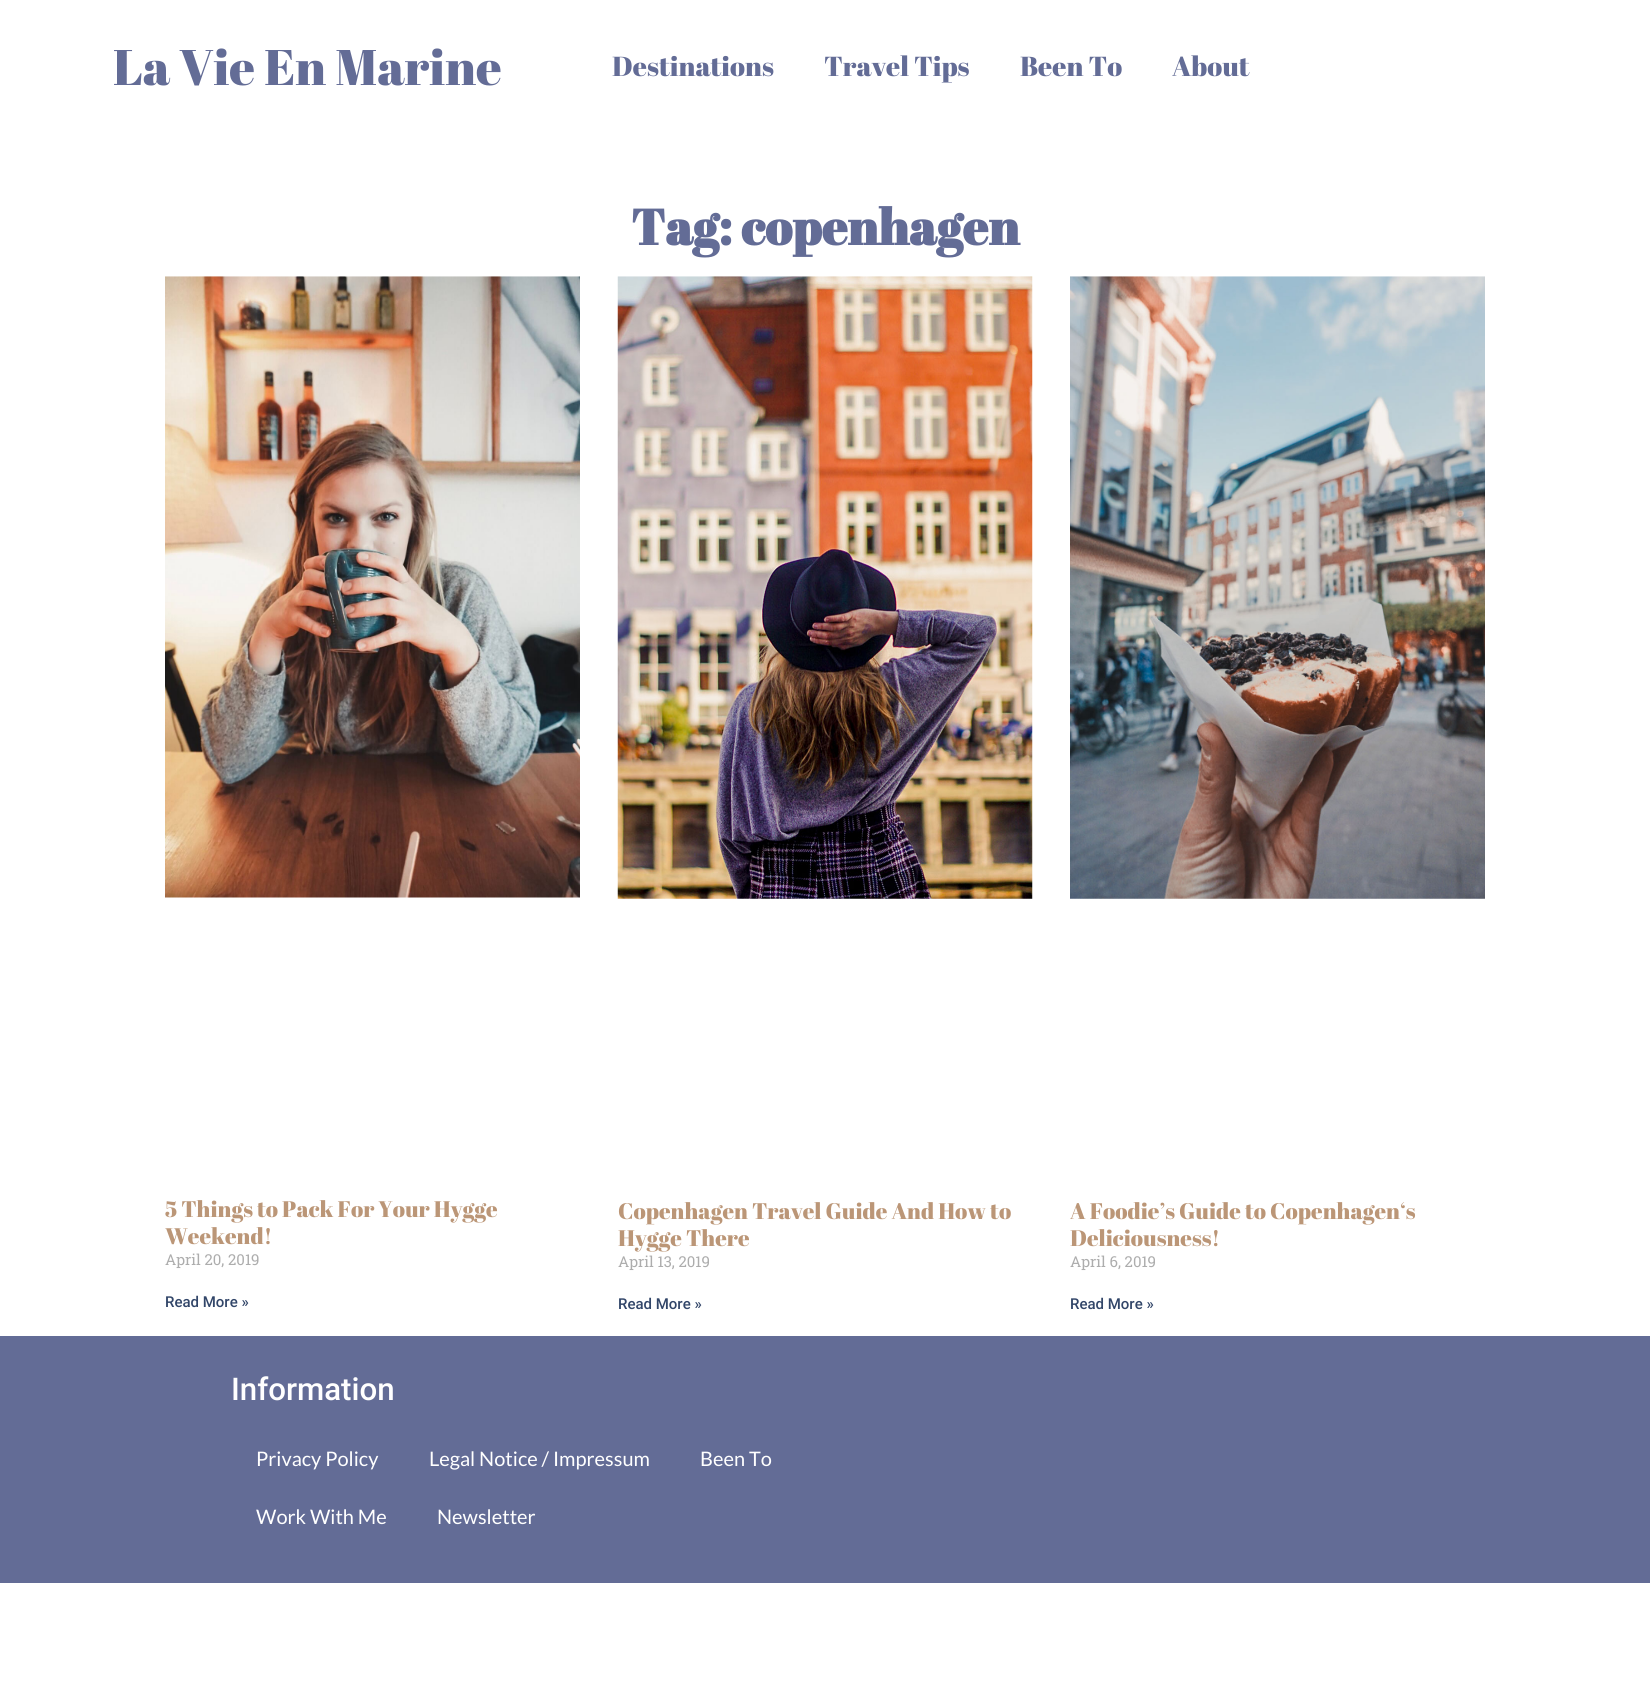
import math
import cairo

surface = cairo.ImageSurface(cairo.FORMAT_RGB24, 1650, 1684)
ctx = cairo.Context(surface)
options = cairo.FontOptions()
options.set_hint_metrics(cairo.HINT_METRICS_OFF)
options.set_hint_style(cairo.HINT_STYLE_NONE)
ctx.set_font_options(options)
ctx.set_miter_limit(4)


def set_color(code):
    ctx.set_source_rgb(*(v / 255 for v in bytes.fromhex(code[-6:])))


def draw_text(x, y, s, family, size, color, bold=False, italic=False):
    ctx.select_font_face(family, cairo.FONT_SLANT_ITALIC if italic else cairo.FONT_SLANT_NORMAL, cairo.FONT_WEIGHT_BOLD if bold else cairo.FONT_WEIGHT_NORMAL)
    ctx.set_font_size(size)
    set_color(color)
    ctx.move_to(x, y)
    ctx.show_text(s)


def fill_rect(x, y, w, h, color):
    set_color(color)
    ctx.rectangle(x, y, w, h)
    ctx.fill()


def draw_image(path, x, y, w, h):
    ctx.save()
    ctx.set_source_surface(cairo.ImageSurface.create_from_png(path), x, y)
    ctx.rectangle(x, y, w, h)
    ctx.fill()
    ctx.restore()


set_color("#ffffff")
ctx.paint()
draw_text(113, 85, "La Vie En Marine", "Abril Fatface", 50, "#636c96")
draw_text(612, 76, "Destinations", "Abril Fatface", 27.5, "#636c96")
draw_text(824, 76, "Travel Tips", "Abril Fatface", 27.5, "#636c96")
draw_text(1020, 76, "Been To", "Abril Fatface", 27.5, "#636c96")
draw_text(1172, 76, "About", "Abril Fatface", 27.5, "#636c96")
draw_text(631, 245, "Tag: copenhagen", "Abril Fatface", 50, "#636c96", bold=True)
draw_image("assets/img1.png", 165, 276, 415, 622)
draw_text(165, 1217, "5 Things to Pack For Your Hygge", "Abril Fatface", 22.5, "#bb9677")
draw_text(165, 1244, "Weekend!", "Abril Fatface", 22.5, "#bb9677")
draw_text(165, 1265, "April 20, 2019", "Roboto Slab", 15, "#adadad")
draw_text(165, 1307, "Read More »", "Roboto Medium", 15, "#324669")
draw_image("assets/img2.png", 617, 276, 416, 623)
draw_text(618, 1219, "Copenhagen Travel Guide And How to", "Abril Fatface", 22.5, "#bb9677")
draw_text(618, 1246, "Hygge There", "Abril Fatface", 22.5, "#bb9677")
draw_text(618, 1267, "April 13, 2019", "Roboto Slab", 15, "#adadad")
draw_text(618, 1309, "Read More »", "Roboto Medium", 15, "#324669")
draw_image("assets/img3.png", 1070, 276, 415, 623)
draw_text(1070, 1219, "A Foodie’s Guide to Copenhagen‘s", "Abril Fatface", 22.5, "#bb9677")
draw_text(1070, 1246, "Deliciousness!", "Abril Fatface", 22.5, "#bb9677")
draw_text(1070, 1267, "April 6, 2019", "Roboto Slab", 15, "#adadad")
draw_text(1070, 1309, "Read More »", "Roboto Medium", 15, "#324669")
fill_rect(0, 1336, 1650, 247, "#636c96")
draw_text(231, 1400, "Information", "Roboto Medium", 31.25, "#ffffff")
draw_text(256, 1466, "Privacy Policy", "Lato", 20, "#ffffff")
draw_text(429, 1466, "Legal Notice / Impressum", "Lato", 20, "#ffffff")
draw_text(700, 1466, "Been To", "Lato", 20, "#ffffff")
draw_text(256, 1524, "Work With Me", "Lato", 20, "#ffffff")
draw_text(437, 1524, "Newsletter", "Lato", 20, "#ffffff")
surface.write_to_png("output.png")
